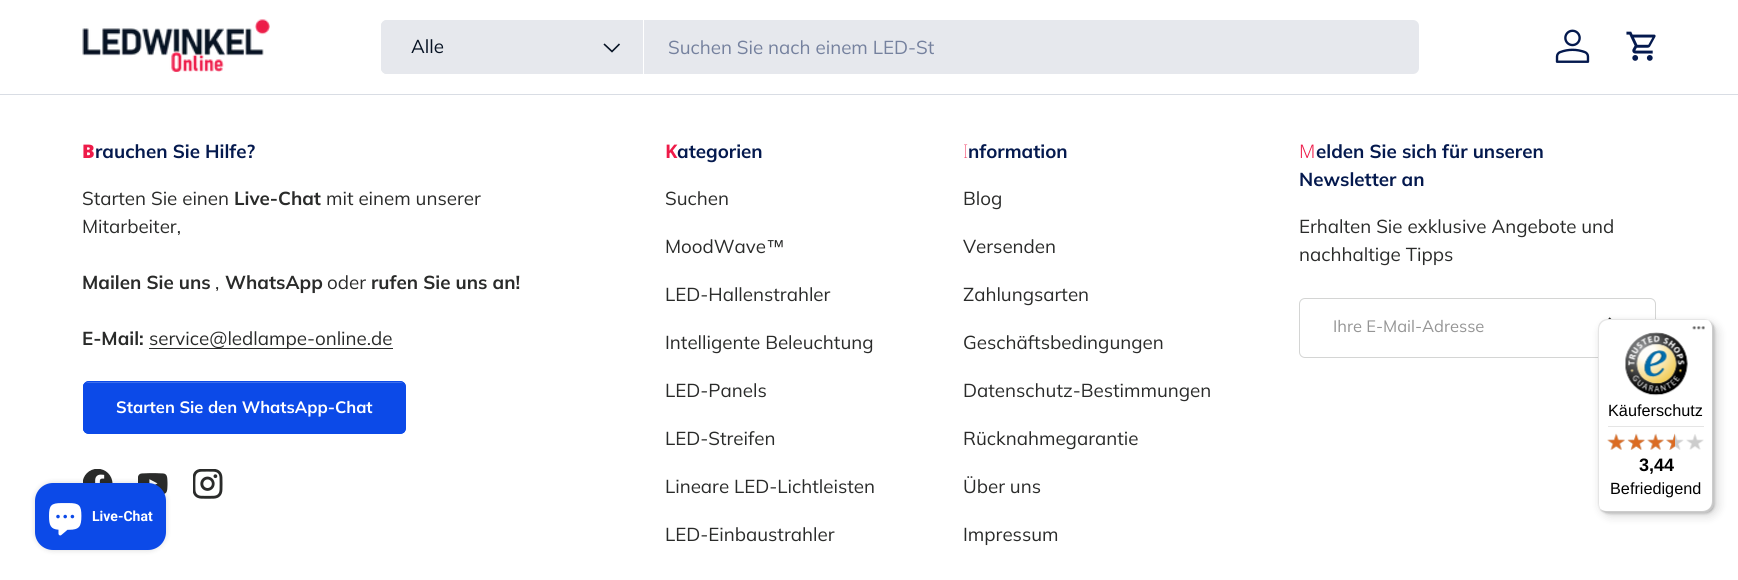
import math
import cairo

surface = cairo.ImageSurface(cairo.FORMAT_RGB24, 1738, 580)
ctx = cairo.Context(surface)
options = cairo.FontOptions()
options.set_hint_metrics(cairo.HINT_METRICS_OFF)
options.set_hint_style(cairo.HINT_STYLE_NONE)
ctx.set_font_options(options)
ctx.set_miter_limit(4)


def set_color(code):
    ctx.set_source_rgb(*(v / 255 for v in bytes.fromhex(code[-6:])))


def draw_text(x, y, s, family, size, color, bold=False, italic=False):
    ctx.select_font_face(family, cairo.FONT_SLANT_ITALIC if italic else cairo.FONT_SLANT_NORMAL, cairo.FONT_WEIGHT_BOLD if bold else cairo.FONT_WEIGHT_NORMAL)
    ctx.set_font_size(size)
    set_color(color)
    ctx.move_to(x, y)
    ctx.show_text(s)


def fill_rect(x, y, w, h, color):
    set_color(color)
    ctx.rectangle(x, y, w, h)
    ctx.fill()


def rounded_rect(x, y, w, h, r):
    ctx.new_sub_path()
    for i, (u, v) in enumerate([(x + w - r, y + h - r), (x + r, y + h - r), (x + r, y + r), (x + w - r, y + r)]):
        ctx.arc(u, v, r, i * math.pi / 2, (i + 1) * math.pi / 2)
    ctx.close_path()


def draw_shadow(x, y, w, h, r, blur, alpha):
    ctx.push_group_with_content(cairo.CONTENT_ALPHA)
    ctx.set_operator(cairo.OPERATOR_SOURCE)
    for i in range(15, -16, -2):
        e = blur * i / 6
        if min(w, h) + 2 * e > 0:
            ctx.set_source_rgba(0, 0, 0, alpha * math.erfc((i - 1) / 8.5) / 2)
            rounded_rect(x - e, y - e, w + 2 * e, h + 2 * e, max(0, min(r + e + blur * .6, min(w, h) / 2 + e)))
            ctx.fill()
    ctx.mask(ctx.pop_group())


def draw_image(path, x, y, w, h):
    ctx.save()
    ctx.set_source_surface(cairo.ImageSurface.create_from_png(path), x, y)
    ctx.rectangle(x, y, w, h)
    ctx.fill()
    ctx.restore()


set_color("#ffffff")
ctx.paint()
fill_rect(0, 94, 1738, 1, "#d9dde4")
draw_image("assets/img1.png", 82, 19, 188, 53)
set_color("#e6e8ed")
rounded_rect(381, 20, 1038, 54, 6)
ctx.fill()
ctx.new_path()
ctx.move_to(387, 20)
ctx.line_to(644, 20)
ctx.line_to(644, 74)
ctx.line_to(387, 74)
ctx.curve_to(383.5, 74, 381, 71.5, 381, 68)
ctx.line_to(381, 26)
ctx.curve_to(381, 22.5, 383.5, 20, 387, 20)
ctx.close_path()
ctx.fill()
fill_rect(643, 20, 1, 54, "#ffffff")
draw_text(411, 53, "Alle", "Muli", 18.75, "#061223")
ctx.new_path()
ctx.move_to(619.5, 44)
ctx.line_to(612, 51.5)
ctx.line_to(604, 44)
ctx.set_line_width(1.6)
ctx.stroke()
draw_text(668, 54, "Suchen Sie nach einem LED-St", "Muli", 18.75, "#75819e")
draw_image("assets/img2.png", 1555, 29, 35, 34)
draw_image("assets/img3.png", 1626, 31, 30, 30)
draw_text(82, 158, "B", "Noto Sans Black", 18.75, "#ee1b49")
draw_text(95, 158, "rauchen Sie Hilfe?", "Muli", 18.75, "#04194e", bold=True)
draw_text(82, 205, "Starten Sie einen", "Muli", 18.75, "#2a2b2a")
draw_text(234, 205, "Live-Chat", "Muli", 18.75, "#2a2b2a", bold=True)
draw_text(326, 205, "mit einem unserer", "Muli", 18.75, "#2a2b2a")
draw_text(82, 233, "Mitarbeiter,", "Muli", 18.75, "#2a2b2a")
draw_text(82, 289, "Mailen Sie uns", "Muli", 18.75, "#2a2b2a", bold=True)
draw_text(215, 289, ",", "Muli", 18.75, "#2a2b2a")
draw_text(225, 289, "WhatsApp", "Muli", 18.75, "#2a2b2a", bold=True)
draw_text(327, 289, "oder", "Muli", 18.75, "#2a2b2a")
draw_text(371, 289, "rufen Sie uns an!", "Muli", 18.75, "#2a2b2a", bold=True)
draw_text(82, 345, "E-Mail:", "Muli", 18.75, "#2a2b2a", bold=True)
fill_rect(149, 348, 244, 1, "#2a2b2a")
draw_text(149, 345, "service@ledlampe-online.de", "Muli", 18.75, "#2a2b2a")
set_color("#3e6fec")
rounded_rect(83, 381, 323, 53, 6)
ctx.fill()
ctx.save()
rounded_rect(83, 381, 323, 53, 6)
ctx.clip()
gradient = cairo.LinearGradient(-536, 293, 383, 522)
gradient.add_color_stop_rgba(0.6, 0.243, 0.435, 0.925, 1)
gradient.add_color_stop_rgba(0.6, 0.047, 0.29, 0.91, 1)
gradient.add_color_stop_rgba(1, 0.047, 0.29, 0.91, 1)
ctx.set_source(gradient)
ctx.rectangle(83, 383, 322, 50)
ctx.fill()
ctx.restore()
rounded_rect(83.5, 381.5, 322, 52, 5.5)
set_color("#0c4ae8")
ctx.set_line_width(1)
ctx.stroke()
draw_text(116, 413, "Starten Sie den WhatsApp-Chat", "Muli", 16.5, "#ffffff", bold=True)
draw_image("assets/img4.png", 83, 469, 30, 14)
draw_image("assets/img5.png", 138, 473, 30, 21)
draw_image("assets/img6.png", 193, 469, 30, 30)
draw_text(665, 158, "K", "Noto Sans", 18.75, "#ee1b49", bold=True)
draw_text(677, 158, "ategorien", "Muli", 18.75, "#04194e", bold=True)
draw_text(665, 205, "Suchen", "Muli", 18.75, "#2a2b2a")
draw_text(665, 253, "MoodWave", "Muli", 18.75, "#2a2b2a")
draw_text(766, 253, "™", "Liberation Sans", 18.75, "#2a2b2a")
draw_text(665, 301, "LED-Hallenstrahler", "Muli", 18.75, "#2a2b2a")
draw_text(665, 349, "Intelligente Beleuchtung", "Muli", 18.75, "#2a2b2a")
draw_text(665, 397, "LED-Panels", "Muli", 18.75, "#2a2b2a")
draw_text(665, 445, "LED-Streifen", "Muli", 18.75, "#2a2b2a")
draw_text(665, 493, "Lineare LED-Lichtleisten", "Muli", 18.75, "#2a2b2a")
draw_text(665, 541, "LED-Einbaustrahler", "Muli", 18.75, "#2a2b2a")
draw_text(963, 158, "I", "Noto Sans Thin", 18.75, "#ee1b49")
draw_text(968, 158, "nformation", "Muli", 18.75, "#04194e", bold=True)
draw_text(963, 205, "Blog", "Muli", 18.75, "#2a2b2a")
draw_text(963, 253, "Versenden", "Muli", 18.75, "#2a2b2a")
draw_text(963, 301, "Zahlungsarten", "Muli", 18.75, "#2a2b2a")
draw_text(963, 349, "Geschäftsbedingungen", "Muli", 18.75, "#2a2b2a")
draw_text(963, 397, "Datenschutz-Bestimmungen", "Muli", 18.75, "#2a2b2a")
draw_text(963, 445, "Rücknahmegarantie", "Muli", 18.75, "#2a2b2a")
draw_text(963, 493, "Über uns", "Muli", 18.75, "#2a2b2a")
draw_text(963, 541, "Impressum", "Muli", 18.75, "#2a2b2a")
draw_text(1299, 158, "M", "Noto Sans Light", 18.75, "#ee1b49")
draw_text(1316, 158, "elden Sie sich für unseren", "Muli", 18.75, "#04194e", bold=True)
draw_text(1299, 186, "Newsletter an", "Muli", 18.75, "#04194e", bold=True)
draw_text(1299, 233, "Erhalten Sie exklusive Angebote und", "Muli", 18.75, "#2a2b2a")
draw_text(1299, 261, "nachhaltige Tipps", "Muli", 18.75, "#2a2b2a")
rounded_rect(1299.5, 298.5, 356, 59, 5.5)
set_color("#d4d5d4")
ctx.stroke()
draw_text(1333, 332, "Ihre E-Mail-Adresse", "Muli", 16.5, "#959595")
ctx.new_path()
ctx.move_to(1599.5, 327.5)
ctx.line_to(1618, 327.5)
ctx.move_to(1609, 318)
ctx.line_to(1618.5, 327.5)
ctx.line_to(1609, 337)
set_color("#2a2b2a")
ctx.set_line_width(1.9)
ctx.stroke()
set_color("#000000")
draw_shadow(1601, 323, 117, 193, 10, 5, 0.15)
draw_shadow(1599, 320, 116, 194, 10, 1, 0.15)
set_color("#ffffff")
rounded_rect(1598, 319, 116, 194, 10)
ctx.fill()
set_color("#e5e5e5")
ctx.new_path()
ctx.move_to(1609, 320)
ctx.line_to(1705, 320)
ctx.curve_to(1707, 320, 1709, 320, 1710, 321)
ctx.curve_to(1709, 320, 1706, 319, 1704, 319)
ctx.line_to(1608, 319)
ctx.curve_to(1602, 319, 1598, 323, 1598, 329)
ctx.line_to(1598, 503)
ctx.curve_to(1598, 506, 1599, 509, 1602, 511)
ctx.curve_to(1600, 509, 1599, 506, 1599, 504)
ctx.line_to(1599, 330)
ctx.curve_to(1599, 324, 1603, 320, 1609, 320)
ctx.close_path()
ctx.fill()
ctx.set_source_rgba(0, 0, 0, 0.2)
ctx.new_path()
ctx.move_to(1600, 509)
ctx.curve_to(1602, 511, 1605, 513, 1608, 513)
ctx.line_to(1704, 513)
ctx.curve_to(1710, 513, 1714, 509, 1714, 503)
ctx.line_to(1714, 329)
ctx.curve_to(1714, 325, 1712, 322, 1708, 320)
ctx.curve_to(1711, 322, 1712, 325, 1712, 328)
ctx.line_to(1712, 501)
ctx.curve_to(1712, 507, 1708, 511, 1702, 511)
ctx.line_to(1606, 511)
ctx.curve_to(1604, 511, 1602, 510, 1600, 509)
ctx.close_path()
ctx.fill()
ctx.set_source_rgba(0.196, 0.196, 0.196, 0.2)
ctx.new_path()
ctx.move_to(1600, 510)
ctx.curve_to(1602, 512, 1605, 513, 1608, 513)
ctx.line_to(1704, 513)
ctx.curve_to(1710, 513, 1714, 509, 1714, 503)
ctx.line_to(1714, 329)
ctx.curve_to(1714, 327, 1713, 324, 1712, 323)
ctx.curve_to(1713, 324, 1713, 326, 1713, 328)
ctx.line_to(1713, 502)
ctx.curve_to(1713, 507, 1709, 512, 1703, 512)
ctx.line_to(1607, 512)
ctx.curve_to(1604, 512, 1602, 511, 1600, 510)
ctx.close_path()
ctx.fill()
ctx.set_source_rgba(1, 1, 1, 0.3)
ctx.new_path()
ctx.move_to(1600, 510)
ctx.curve_to(1602, 512, 1605, 513, 1608, 513)
ctx.line_to(1704, 513)
ctx.curve_to(1710, 513, 1714, 509, 1714, 503)
ctx.line_to(1714, 329)
ctx.curve_to(1714, 326, 1713, 323, 1710, 321)
ctx.curve_to(1712, 323, 1713, 326, 1713, 328)
ctx.line_to(1713, 502)
ctx.curve_to(1713, 507, 1709, 512, 1703, 512)
ctx.line_to(1607, 512)
ctx.curve_to(1604, 512, 1602, 511, 1600, 510)
ctx.close_path()
ctx.fill()
draw_image("assets/img7.png", 1692, 326, 13, 4)
draw_image("assets/img8.png", 1625, 332, 63, 64)
draw_text(1608, 416, "Käuferschutz", "Liberation Sans", 16.25, "#000000")
fill_rect(1608, 426, 96, 1, "#e5e5e5")
draw_image("assets/img13.png", 1607, 434, 18, 16)
draw_image("assets/img9.png", 1607, 433, 18, 17)
draw_image("assets/img14.png", 1628, 434, 17, 16)
draw_image("assets/img10.png", 1627, 433, 18, 17)
draw_image("assets/img15.png", 1647, 434, 17, 16)
draw_image("assets/img11.png", 1647, 433, 17, 17)
draw_image("assets/img16.png", 1666, 434, 18, 16)
draw_image("assets/img12.png", 1666, 433, 9, 17)
draw_image("assets/img17.png", 1686, 434, 18, 16)
draw_text(1639, 471, "3,44", "Liberation Sans", 18, "#000000", bold=True)
draw_text(1610, 494, "Befriedigend", "Liberation Sans", 16.25, "#000000")
set_color("#000000")
draw_shadow(35, 483, 131, 67, 18, 3, 0.15)
set_color("#0c4ae8")
rounded_rect(35, 483, 131, 67, 18)
ctx.fill()
draw_image("assets/img18.png", 49, 503, 33, 33)
draw_text(92, 521, "Live-Chat", "Roboto", 14, "#ffffff", bold=True)
surface.write_to_png("output.png")
